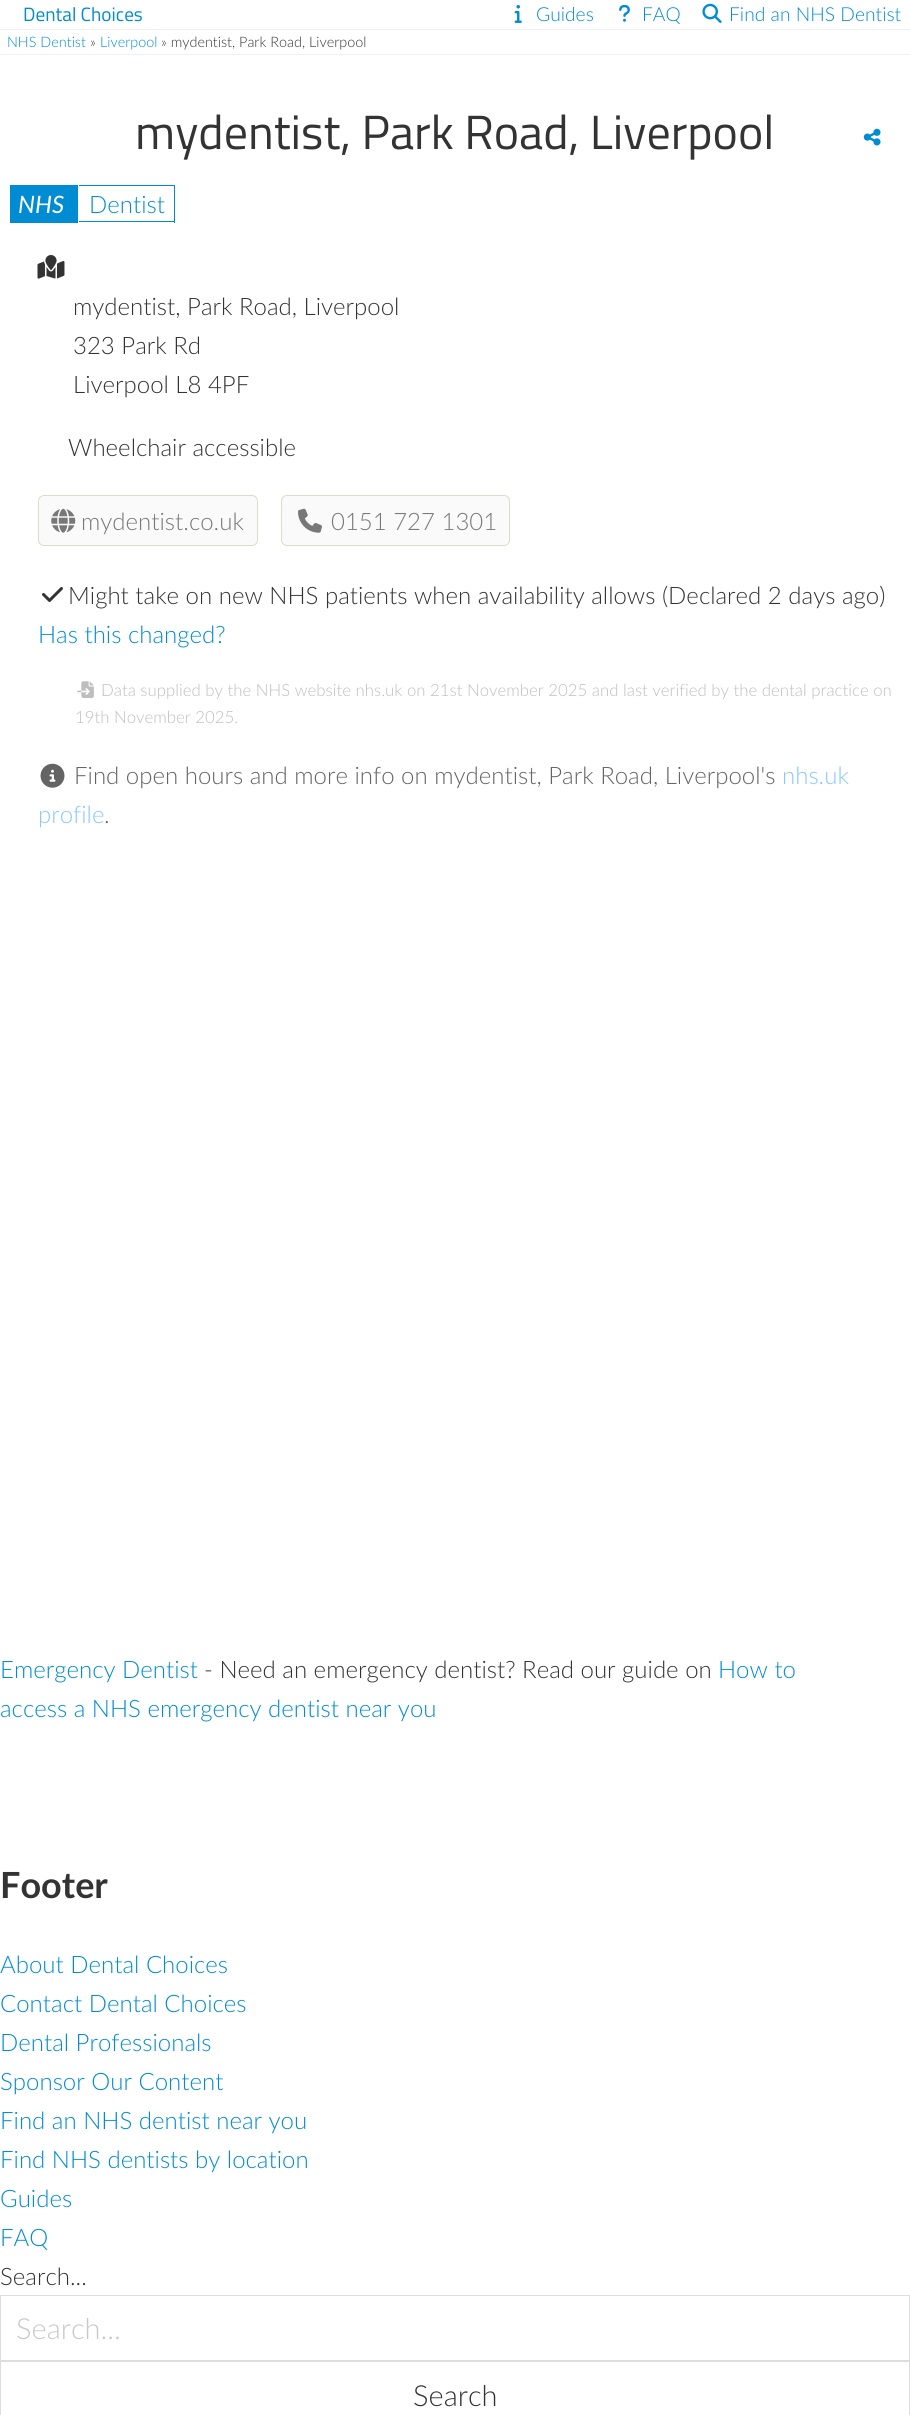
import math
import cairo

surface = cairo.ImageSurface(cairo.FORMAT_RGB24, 910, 2415)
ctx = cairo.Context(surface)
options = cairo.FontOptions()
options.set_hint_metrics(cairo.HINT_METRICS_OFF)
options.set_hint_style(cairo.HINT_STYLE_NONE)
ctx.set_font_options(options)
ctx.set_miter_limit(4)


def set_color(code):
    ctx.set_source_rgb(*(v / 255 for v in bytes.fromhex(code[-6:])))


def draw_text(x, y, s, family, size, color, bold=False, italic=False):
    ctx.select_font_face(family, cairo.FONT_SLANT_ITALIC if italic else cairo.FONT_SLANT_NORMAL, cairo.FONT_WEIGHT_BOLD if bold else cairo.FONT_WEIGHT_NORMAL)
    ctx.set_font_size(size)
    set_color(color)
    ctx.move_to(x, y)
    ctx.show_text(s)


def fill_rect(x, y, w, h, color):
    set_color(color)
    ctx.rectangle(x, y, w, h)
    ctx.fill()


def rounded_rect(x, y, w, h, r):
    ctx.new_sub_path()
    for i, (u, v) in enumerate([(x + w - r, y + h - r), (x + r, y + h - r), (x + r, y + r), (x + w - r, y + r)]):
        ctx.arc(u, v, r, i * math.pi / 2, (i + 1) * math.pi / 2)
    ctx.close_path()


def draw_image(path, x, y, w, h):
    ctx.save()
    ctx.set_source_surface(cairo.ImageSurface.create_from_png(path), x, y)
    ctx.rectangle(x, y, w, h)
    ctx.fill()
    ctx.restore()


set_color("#ffffff")
ctx.paint()
fill_rect(0, 29, 910, 1, "#f0f0f0")
draw_text(23, 21, "Dental Choices", "Titillium Web", 19.25, "#008cd2")
draw_image("assets/img1.png", 514, 5, 8, 18)
draw_text(536, 21, "Guides", "Lato Light", 19.25, "#008cd2")
draw_image("assets/img2.png", 619, 4, 11, 18)
draw_text(642, 21, "FAQ", "Lato Light", 19.25, "#008cd2")
draw_image("assets/img3.png", 702, 3, 20, 20)
draw_text(729, 21, "Find an NHS Dentist", "Lato Light", 19.25, "#008cd2")
fill_rect(0, 54, 910, 1, "#f0f0f0")
draw_text(7, 47, "NHS Dentist", "Lato Light", 14.4, "#008cd2")
draw_text(90, 47, "»", "Lato Light", 14.4, "#333333")
draw_text(100, 47, "Liverpool", "Lato Light", 14.4, "#008cd2")
draw_text(161, 47, "» mydentist, Park Road, Liverpool", "Lato Light", 14.4, "#333333")
draw_text(135, 149, "mydentist, Park Road, Liverpool", "Titillium Web", 48, "#333333")
draw_image("assets/img4.png", 863, 128, 18, 18)
fill_rect(10, 185, 68, 38, "#008cd2")
draw_text(18, 213, "NHS", "Lato", 24, "#ffffff", italic=True)
draw_text(89, 213, "Dentist", "Lato Light", 24, "#008cd2")
fill_rect(79, 185, 96, 1, "#008cd2")
fill_rect(174, 185, 1, 38, "#008cd2")
fill_rect(79, 221, 96, 1, "#008cd2")
draw_image("assets/img5.png", 37, 255, 28, 24)
draw_text(73, 315, "mydentist, Park Road, Liverpool", "Lato Light", 24, "#333333")
draw_text(73, 354, "323 Park Rd", "Lato Light", 24, "#333333")
draw_text(73, 393, "Liverpool L8 4PF", "Lato Light", 24, "#333333")
draw_text(68, 456, "Wheelchair accessible", "Lato Light", 24, "#333333")
set_color("#fafafa")
rounded_rect(38.5, 495.5, 219, 50, 5.5)
ctx.fill_preserve()
set_color("#dcdcc8")
ctx.set_line_width(1)
ctx.stroke()
draw_image("assets/img6.png", 51, 508, 25, 25)
draw_text(81, 530, "mydentist.co.uk", "Lato Light", 24, "#787878")
set_color("#fafafa")
rounded_rect(281.5, 495.5, 228, 50, 5.5)
ctx.fill_preserve()
set_color("#dcdcc8")
ctx.stroke()
draw_image("assets/img7.png", 298, 508, 24, 25)
draw_text(331, 530, "0151 727 1301", "Lato Light", 24, "#787878")
draw_image("assets/img8.png", 42, 587, 21, 15)
draw_text(68, 604, "Might take on new NHS patients when availability allows (Declared 2 days ago)", "Lato Light", 24, "#333333")
draw_text(38, 643, "Has this changed?", "Lato Light", 24, "#008cd2")
draw_image("assets/img9.png", 77, 681, 17, 18)
draw_text(101, 696, "Data supplied by the NHS website nhs.uk on 21st November 2025 and last verified by the dental practice on", "Lato Light", 16.8, "#bebebe")
draw_text(75, 723, "19th November 2025.", "Lato Light", 16.8, "#bebebe")
draw_image("assets/img10.png", 40, 763, 25, 25)
draw_text(74, 784, "Find open hours and more info on mydentist, Park Road, Liverpool's", "Lato Light", 24, "#646464")
draw_text(782, 784, "nhs.uk", "Lato Light", 24, "#87c8ff")
draw_text(38, 823, "profile", "Lato Light", 24, "#87c8ff")
draw_text(104, 823, ".", "Lato Light", 24, "#646464")
draw_text(0, 1678, "Emergency Dentist", "Lato Light", 24, "#008cd2")
draw_text(204, 1678, "- Need an emergency dentist? Read our guide on", "Lato Light", 24, "#333333")
draw_text(718, 1678, "How to", "Lato Light", 24, "#008cd2")
draw_text(0, 1717, "access a NHS emergency dentist near you", "Lato Light", 24, "#008cd2")
draw_text(0, 1898, "Footer", "Lato", 36, "#333333", bold=True)
draw_text(0, 1973, "About Dental Choices", "Lato Light", 24, "#008cd2")
draw_text(0, 2012, "Contact Dental Choices", "Lato Light", 24, "#008cd2")
draw_text(0, 2051, "Dental Professionals", "Lato Light", 24, "#008cd2")
draw_text(0, 2090, "Sponsor Our Content", "Lato Light", 24, "#008cd2")
draw_text(0, 2129, "Find an NHS dentist near you", "Lato Light", 24, "#008cd2")
draw_text(0, 2168, "Find NHS dentists by location", "Lato Light", 24, "#008cd2")
draw_text(0, 2207, "Guides", "Lato Light", 24, "#008cd2")
draw_text(0, 2246, "FAQ", "Lato Light", 24, "#008cd2")
draw_text(0, 2285, "Search...", "Lato Light", 24, "#333333")
ctx.rectangle(0.5, 2295.5, 909, 65)
set_color("#dddddd")
ctx.stroke()
draw_text(16, 2339, "Search...", "Lato Light", 29, "#c8c8c8")
ctx.rectangle(0.5, 2361.5, 909, 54)
set_color("#dddddd")
ctx.stroke()
draw_text(413, 2406, "Search", "Lato Light", 29, "#333333")
surface.write_to_png("output.png")
